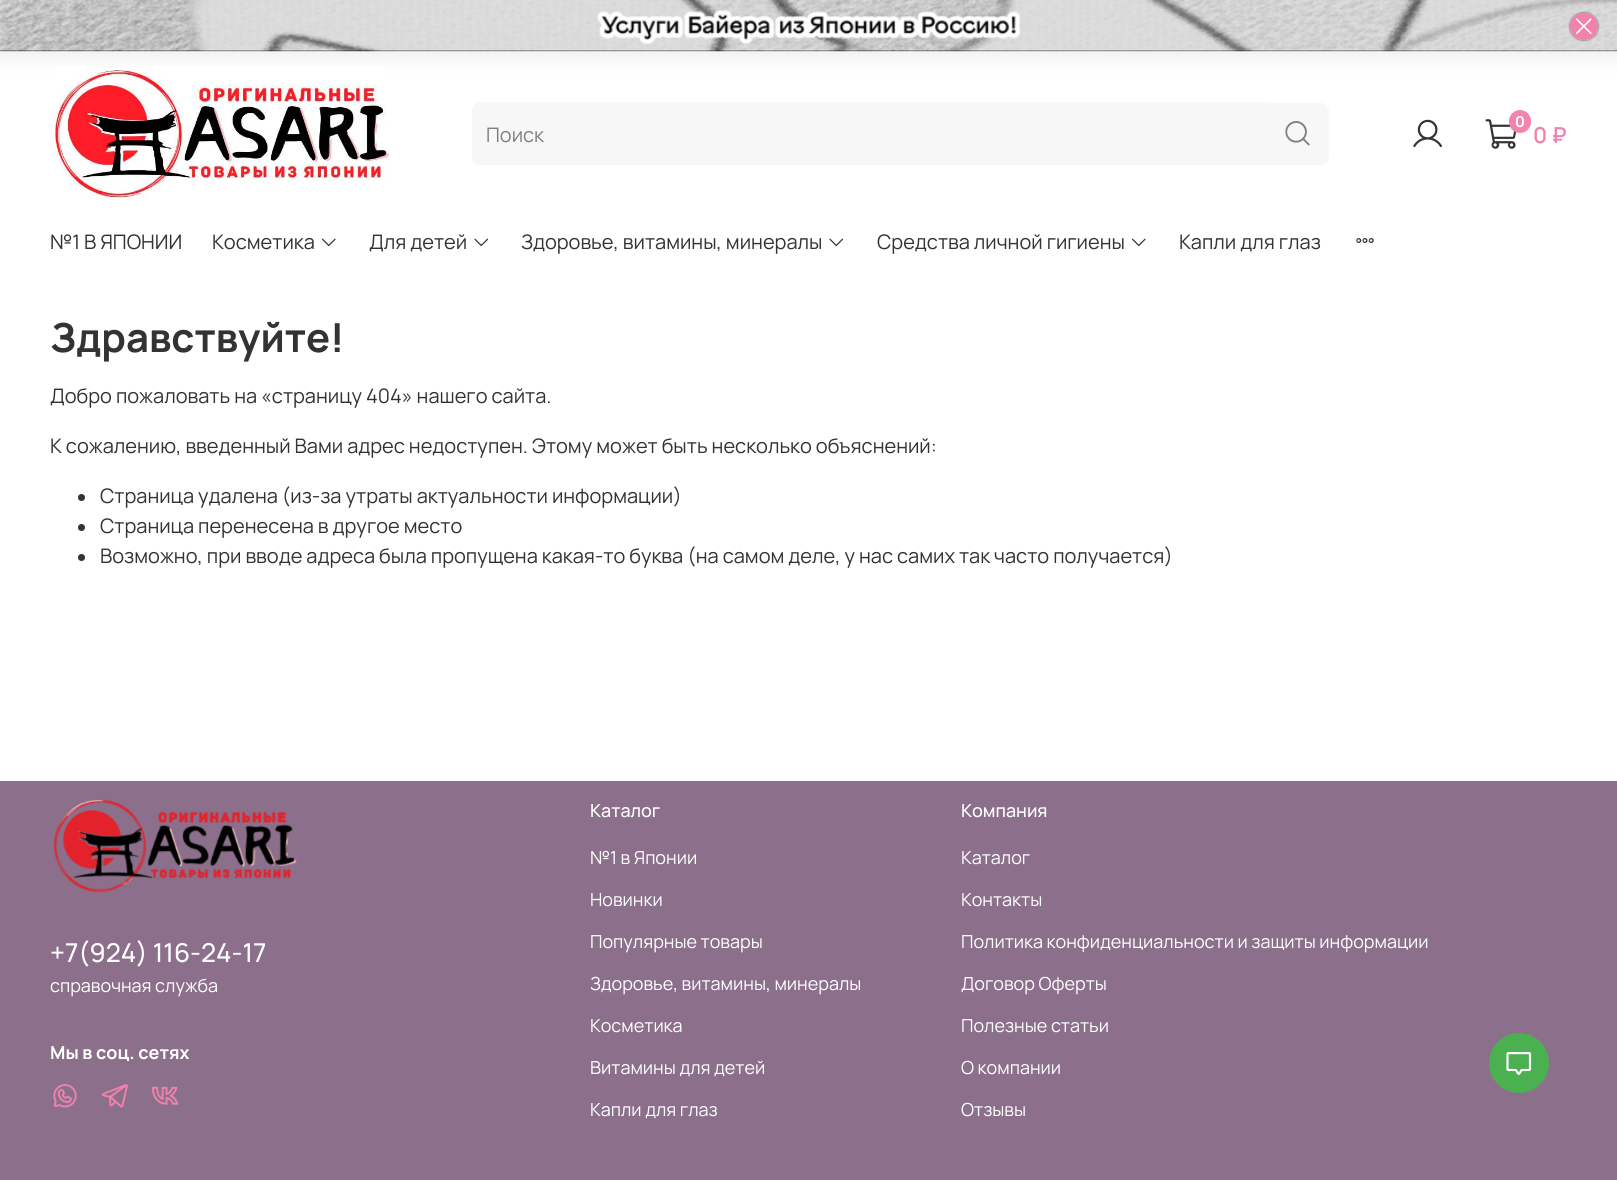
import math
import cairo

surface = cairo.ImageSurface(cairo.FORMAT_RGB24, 1617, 1180)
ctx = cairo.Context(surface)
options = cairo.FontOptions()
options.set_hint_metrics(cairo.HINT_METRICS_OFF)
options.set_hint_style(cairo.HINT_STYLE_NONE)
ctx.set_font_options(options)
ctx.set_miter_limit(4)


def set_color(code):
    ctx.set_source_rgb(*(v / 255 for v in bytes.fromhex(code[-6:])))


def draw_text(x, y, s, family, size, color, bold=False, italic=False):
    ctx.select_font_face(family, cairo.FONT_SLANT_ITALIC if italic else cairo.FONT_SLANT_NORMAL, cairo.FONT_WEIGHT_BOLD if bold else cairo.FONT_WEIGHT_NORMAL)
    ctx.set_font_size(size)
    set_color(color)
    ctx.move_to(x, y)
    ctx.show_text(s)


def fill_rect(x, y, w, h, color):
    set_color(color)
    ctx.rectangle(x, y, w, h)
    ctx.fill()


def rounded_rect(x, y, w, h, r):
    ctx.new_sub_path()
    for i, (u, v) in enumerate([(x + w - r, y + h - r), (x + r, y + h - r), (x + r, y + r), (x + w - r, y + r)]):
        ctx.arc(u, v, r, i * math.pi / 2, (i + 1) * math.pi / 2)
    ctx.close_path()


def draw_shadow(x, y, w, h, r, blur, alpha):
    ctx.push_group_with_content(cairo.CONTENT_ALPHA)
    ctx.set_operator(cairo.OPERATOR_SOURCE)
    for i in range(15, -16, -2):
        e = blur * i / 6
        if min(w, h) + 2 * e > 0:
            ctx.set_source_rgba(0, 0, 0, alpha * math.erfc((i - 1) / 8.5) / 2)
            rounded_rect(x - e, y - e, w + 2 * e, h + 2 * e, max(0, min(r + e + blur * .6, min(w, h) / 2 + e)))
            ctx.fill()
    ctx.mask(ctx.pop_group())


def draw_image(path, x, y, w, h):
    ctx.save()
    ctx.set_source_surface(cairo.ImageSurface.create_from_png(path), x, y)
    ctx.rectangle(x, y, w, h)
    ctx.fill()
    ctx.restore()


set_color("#ffffff")
ctx.paint()
set_color("#000000")
draw_shadow(-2, -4, 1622, 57, 0, 14.5, 0.09)
draw_image("assets/img1.png", 0, 0, 1617, 52)
ctx.save()
ctx.set_fill_rule(cairo.FILL_RULE_EVEN_ODD)
ctx.new_path()
ctx.move_to(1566, 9)
ctx.line_to(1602, 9)
ctx.line_to(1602, 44)
ctx.line_to(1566, 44)
ctx.close_path()
ctx.move_to(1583.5, 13)
ctx.line_to(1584.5, 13)
ctx.curve_to(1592, 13, 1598, 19, 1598, 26.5)
ctx.curve_to(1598, 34, 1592, 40, 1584.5, 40)
ctx.line_to(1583.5, 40)
ctx.curve_to(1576, 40, 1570, 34, 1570, 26.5)
ctx.curve_to(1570, 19, 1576, 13, 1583.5, 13)
ctx.close_path()
ctx.clip()
set_color("#333333")
draw_shadow(1570, 13, 28, 27, 13.5, 1, 1)
ctx.restore()
set_color("#f082ac")
rounded_rect(1570, 13, 28, 27, 13.5)
ctx.fill()
draw_image("assets/img2.png", 1576, 18, 16, 16)
draw_image("assets/img3.png", 50, 67, 341, 133)
set_color("#f7f7f7")
ctx.new_path()
ctx.move_to(481, 103)
ctx.line_to(1266, 103)
ctx.line_to(1266, 165)
ctx.line_to(481, 165)
ctx.curve_to(476.5, 165, 473, 161.5, 473, 157)
ctx.line_to(473, 111)
ctx.curve_to(473, 106.5, 476.5, 103, 481, 103)
ctx.close_path()
ctx.fill()
ctx.set_fill_rule(cairo.FILL_RULE_EVEN_ODD)
ctx.new_path()
ctx.move_to(480, 102)
ctx.line_to(1266, 102)
ctx.line_to(1266, 165)
ctx.line_to(480, 165)
ctx.curve_to(476, 165, 472, 162, 472, 158)
ctx.line_to(472, 110)
ctx.curve_to(472, 106, 476, 102, 480, 102)
ctx.close_path()
ctx.move_to(480, 104)
ctx.line_to(1266, 104)
ctx.line_to(1266, 164)
ctx.line_to(480, 164)
ctx.curve_to(477, 164, 474, 161, 474, 158)
ctx.line_to(474, 110)
ctx.curve_to(474, 107, 477, 104, 480, 104)
ctx.close_path()
ctx.fill()
draw_text(486, 142, "Поиск", "Manrope", 20, "#808080")
set_color("#f7f7f7")
ctx.new_path()
ctx.move_to(1266, 103)
ctx.line_to(1321, 103)
ctx.curve_to(1325.5, 103, 1329, 106.5, 1329, 111)
ctx.line_to(1329, 157)
ctx.curve_to(1329, 161.5, 1325.5, 165, 1321, 165)
ctx.line_to(1266, 165)
ctx.close_path()
ctx.fill()
draw_image("assets/img4.png", 1285, 121, 25, 25)
draw_image("assets/img5.png", 1413, 119, 29, 29)
draw_image("assets/img6.png", 1485, 119, 31, 30)
set_color("#f284ae")
rounded_rect(1509, 110, 22, 23, 11)
ctx.fill()
draw_text(1515, 127, "0", "Manrope", 15, "#ffffff", bold=True)
draw_text(1533, 143, "0 ₽", "Manrope SemiBold", 22, "#f082ac")
draw_text(50, 249, "№1 В ЯПОНИИ", "Manrope", 20, "#333333")
draw_text(212, 249, "Косметика", "Manrope", 20, "#333333")
draw_image("assets/img7.png", 321, 238, 15, 9)
draw_text(369, 249, "Для детей", "Manrope", 20, "#333333")
draw_image("assets/img8.png", 474, 238, 15, 9)
draw_text(521, 249, "Здоровье, витамины, минералы", "Manrope", 20, "#333333")
draw_image("assets/img8.png", 829, 238, 15, 9)
draw_text(877, 249, "Средства личной гигиены", "Manrope", 20, "#333333")
draw_image("assets/img7.png", 1131, 238, 15, 9)
draw_text(1179, 249, "Капли для глаз", "Manrope", 20, "#333333")
draw_image("assets/img9.png", 1356, 238, 18, 5)
draw_text(50, 352, "Здравствуйте!", "Manrope", 40, "#333333", bold=True)
draw_text(50, 403, "Добро пожаловать на «страницу 404» нашего сайта.", "Manrope", 20, "#333333")
draw_text(50, 453, "К сожалению, введенный Вами адрес недоступен. Этому может быть несколько объяснений:", "Manrope", 20, "#333333")
ctx.new_path()
ctx.arc(81.5, 497.5, 3.5, 0, 2 * math.pi)
ctx.fill()
draw_text(100, 503, "Страница удалена (из-за утраты актуальности информации)", "Manrope", 20, "#333333")
ctx.new_path()
ctx.arc(81.5, 527.5, 3.5, 0, 2 * math.pi)
ctx.fill()
draw_text(100, 533, "Страница перенесена в другое место", "Manrope", 20, "#333333")
ctx.new_path()
ctx.arc(81.5, 557.5, 3.5, 0, 2 * math.pi)
ctx.fill()
draw_text(100, 563, "Возможно, при вводе адреса была пропущена какая-то буква (на самом деле, у нас самих так часто получается)", "Manrope", 20, "#333333")
fill_rect(0, 781, 1617, 399, "#8c6f8b")
draw_image("assets/img10.png", 53, 799, 244, 94)
draw_text(50, 962, "+7(924) 116-24-17", "Manrope Medium", 26, "#ffffff")
draw_text(50, 992, "справочная служба", "Manrope", 18, "#ffffff")
draw_text(50, 1059, "Мы в соц. сетях", "Manrope", 18, "#ffffff", bold=True)
draw_image("assets/img11.png", 53, 1084, 24, 24)
draw_image("assets/img12.png", 102, 1084, 26, 24)
draw_image("assets/img13.png", 151, 1086, 28, 19)
draw_text(590, 817, "Каталог", "Manrope Medium", 18, "#ffffff")
draw_text(590, 864, "№1 в Японии", "Manrope", 18, "#ffffff")
draw_text(590, 906, "Новинки", "Manrope", 18, "#ffffff")
draw_text(590, 948, "Популярные товары", "Manrope", 18, "#ffffff")
draw_text(590, 990, "Здоровье, витамины, минералы", "Manrope", 18, "#ffffff")
draw_text(590, 1032, "Косметика", "Manrope", 18, "#ffffff")
draw_text(590, 1074, "Витамины для детей", "Manrope", 18, "#ffffff")
draw_text(590, 1116, "Капли для глаз", "Manrope", 18, "#ffffff")
draw_text(961, 817, "Компания", "Manrope Medium", 18, "#ffffff")
draw_text(961, 864, "Каталог", "Manrope", 18, "#ffffff")
draw_text(961, 906, "Контакты", "Manrope", 18, "#ffffff")
draw_text(961, 948, "Политика конфиденциальности и защиты информации", "Manrope", 18, "#ffffff")
draw_text(961, 990, "Договор Оферты", "Manrope", 18, "#ffffff")
draw_text(961, 1032, "Полезные статьи", "Manrope", 18, "#ffffff")
draw_text(961, 1074, "О компании", "Manrope", 18, "#ffffff")
draw_text(961, 1116, "Отзывы", "Manrope", 18, "#ffffff")
set_color("#4bb04f")
ctx.new_path()
ctx.arc(1519, 1063, 30, 0, 2 * math.pi)
ctx.fill()
draw_image("assets/img14.png", 1506, 1052, 26, 23)
surface.write_to_png("output.png")
